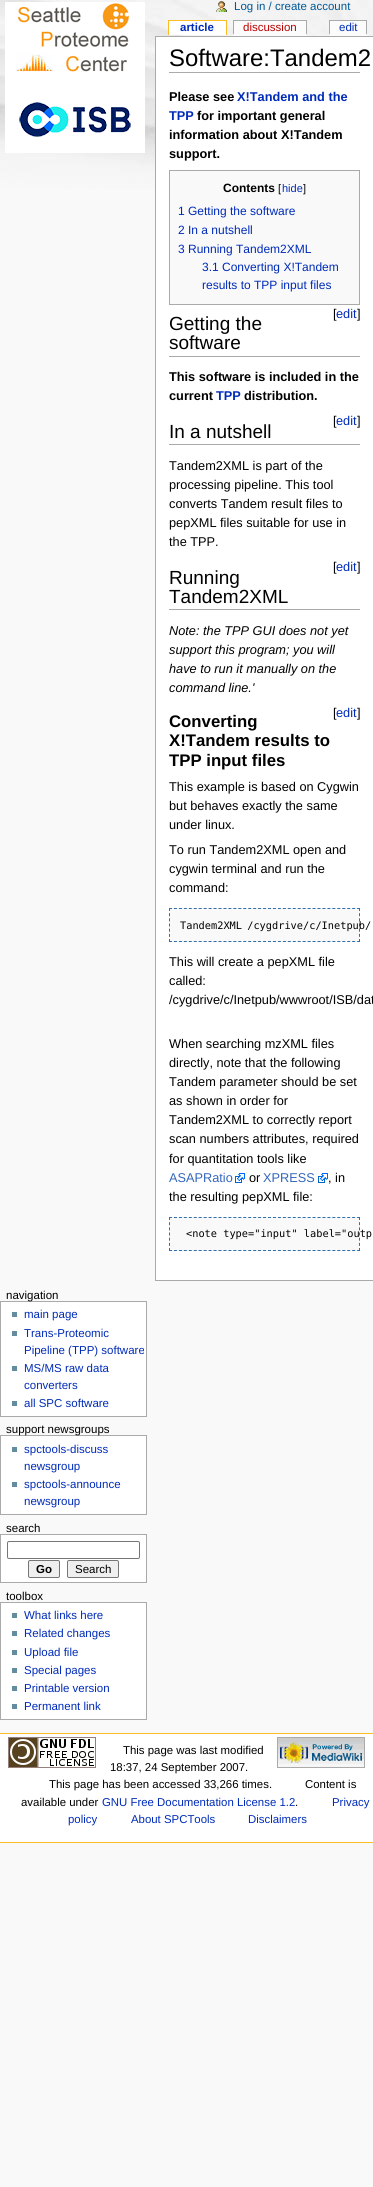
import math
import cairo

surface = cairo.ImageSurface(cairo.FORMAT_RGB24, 373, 2187)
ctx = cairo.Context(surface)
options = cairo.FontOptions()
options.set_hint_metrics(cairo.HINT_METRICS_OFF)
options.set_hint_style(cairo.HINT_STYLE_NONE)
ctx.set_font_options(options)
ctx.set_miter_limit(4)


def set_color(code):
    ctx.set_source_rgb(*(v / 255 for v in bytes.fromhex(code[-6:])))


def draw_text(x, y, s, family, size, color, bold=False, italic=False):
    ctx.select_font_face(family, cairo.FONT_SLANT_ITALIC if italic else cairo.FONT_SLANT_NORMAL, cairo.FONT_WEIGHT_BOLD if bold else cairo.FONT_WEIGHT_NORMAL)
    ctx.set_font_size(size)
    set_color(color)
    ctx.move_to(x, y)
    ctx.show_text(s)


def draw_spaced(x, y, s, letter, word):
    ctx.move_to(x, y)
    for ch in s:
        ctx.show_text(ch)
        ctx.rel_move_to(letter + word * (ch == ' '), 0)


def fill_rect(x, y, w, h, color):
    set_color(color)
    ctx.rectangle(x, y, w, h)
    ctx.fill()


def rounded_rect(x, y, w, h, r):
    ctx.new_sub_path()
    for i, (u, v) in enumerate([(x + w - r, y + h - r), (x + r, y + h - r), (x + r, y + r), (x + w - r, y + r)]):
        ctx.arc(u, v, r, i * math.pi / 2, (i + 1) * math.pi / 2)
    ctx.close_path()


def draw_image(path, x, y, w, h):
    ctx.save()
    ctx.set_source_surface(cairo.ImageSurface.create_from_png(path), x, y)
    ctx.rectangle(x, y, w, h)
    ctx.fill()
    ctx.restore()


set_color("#f9f9f9")
ctx.paint()
draw_image("assets/img1.png", 0, 0, 373, 189)
draw_image("assets/img2.png", 5, 2, 140, 151)
draw_image("assets/img3.png", 216, 1, 11, 11)
draw_text(234, 10, "Log in / create account", "Liberation Sans", 11.5, "#005896")
fill_rect(169, 21, 57, 14, "#ffffff")
draw_text(180, 31, "article", "Liberation Sans", 11.5, "#002bb8", bold=True)
fill_rect(168, 20, 59, 1, "#fabd23")
fill_rect(226, 20, 1, 15, "#fabd23")
fill_rect(168, 20, 1, 15, "#fabd23")
fill_rect(234, 21, 72, 15, "#fbfbfb")
draw_text(243, 31, "discussion", "Liberation Sans", 11.5, "#ba0000")
fill_rect(233, 20, 74, 1, "#aaaaaa")
fill_rect(306, 20, 1, 14, "#aaaaaa")
fill_rect(233, 20, 1, 14, "#aaaaaa")
fill_rect(330, 21, 36, 15, "#fbfbfb")
draw_text(339, 31, "edit", "Liberation Sans", 11.5, "#002bb8")
fill_rect(329, 20, 38, 1, "#aaaaaa")
fill_rect(366, 20, 1, 14, "#aaaaaa")
fill_rect(329, 20, 1, 14, "#aaaaaa")
set_color("#ffffff")
ctx.rectangle(0.5, 1301.5, 146, 115)
ctx.fill_preserve()
set_color("#aaaaaa")
ctx.set_line_width(1)
ctx.stroke()
draw_text(6, 1299, "navigation", "Liberation Sans", 11.5, "#000000")
fill_rect(12, 1312, 5, 5, "#638c9c")
draw_text(24, 1318, "main page", "Liberation Sans", 11.5, "#002bb8")
fill_rect(12, 1331, 5, 5, "#638c9c")
draw_text(24, 1337, "Trans-Proteomic", "Liberation Sans", 11.5, "#002bb8")
draw_text(24, 1354, "Pipeline (TPP) software", "Liberation Sans", 11.5, "#002bb8")
fill_rect(12, 1366, 5, 5, "#638c9c")
draw_text(24, 1372, "MS/MS raw data", "Liberation Sans", 11.5, "#002bb8")
draw_text(24, 1389, "converters", "Liberation Sans", 11.5, "#002bb8")
fill_rect(12, 1401, 5, 5, "#638c9c")
draw_text(24, 1407, "all SPC software", "Liberation Sans", 11.5, "#002bb8")
set_color("#ffffff")
ctx.rectangle(0.5, 1435.5, 146, 79)
ctx.fill_preserve()
set_color("#aaaaaa")
ctx.stroke()
draw_text(6, 1433, "support newsgroups", "Liberation Sans", 11.5, "#000000")
fill_rect(12, 1447, 5, 5, "#638c9c")
draw_text(24, 1453, "spctools-discuss", "Liberation Sans", 11.5, "#002bb8")
draw_text(24, 1470, "newsgroup", "Liberation Sans", 11.5, "#002bb8")
fill_rect(12, 1482, 5, 5, "#638c9c")
draw_text(24, 1488, "spctools-announce", "Liberation Sans", 11.5, "#002bb8")
draw_text(24, 1505, "newsgroup", "Liberation Sans", 11.5, "#002bb8")
draw_text(6, 1532, "search", "Liberation Sans", 11.5, "#000000")
set_color("#ffffff")
ctx.rectangle(0.5, 1534.5, 146, 48)
ctx.fill_preserve()
set_color("#aaaaaa")
ctx.stroke()
rounded_rect(7.5, 1541.5, 132, 17, 1.5)
set_color("#767676")
ctx.stroke()
set_color("#efefef")
rounded_rect(28.5, 1560.5, 31, 17, 1.5)
ctx.fill_preserve()
set_color("#767676")
ctx.stroke()
draw_text(36, 1573, "Go", "Liberation Sans", 11.5, "#000000", bold=True)
set_color("#efefef")
rounded_rect(67.5, 1560.5, 51, 17, 1.5)
ctx.fill_preserve()
set_color("#767676")
ctx.stroke()
draw_text(75, 1573, "Search", "Liberation Sans", 11.5, "#000000")
draw_text(6, 1600, "toolbox", "Liberation Sans", 11.5, "#000000")
set_color("#ffffff")
ctx.rectangle(0.5, 1602.5, 146, 117)
ctx.fill_preserve()
set_color("#aaaaaa")
ctx.stroke()
fill_rect(12, 1613, 5, 5, "#638c9c")
draw_text(24, 1619, "What links here", "Liberation Sans", 11.5, "#002bb8")
fill_rect(12, 1631, 5, 5, "#638c9c")
draw_text(24, 1637, "Related changes", "Liberation Sans", 11.5, "#002bb8")
fill_rect(12, 1650, 5, 5, "#638c9c")
draw_text(24, 1656, "Upload file", "Liberation Sans", 11.5, "#002bb8")
fill_rect(12, 1668, 5, 5, "#638c9c")
draw_text(24, 1674, "Special pages", "Liberation Sans", 11.5, "#002bb8")
fill_rect(12, 1686, 5, 5, "#638c9c")
draw_text(24, 1692, "Printable version", "Liberation Sans", 11.5, "#002bb8")
fill_rect(12, 1704, 5, 5, "#638c9c")
draw_text(24, 1710, "Permanent link", "Liberation Sans", 11.5, "#002bb8")
fill_rect(156, 37, 217, 1243, "#ffffff")
fill_rect(155, 36, 218, 1, "#aaaaaa")
fill_rect(155, 1280, 218, 1, "#aaaaaa")
fill_rect(155, 36, 1, 1245, "#aaaaaa")
fill_rect(169, 72, 191, 1, "#aaaaaa")
draw_text(169, 66, "Software:Tandem2", "Liberation Sans", 23.9, "#000000")
draw_text(169, 101, "Please see", "Liberation Sans", 12.75, "#000000", bold=True)
draw_text(237, 101, "X!Tandem and the", "Liberation Sans", 12.75, "#002bb8", bold=True)
draw_text(169, 120, "TPP", "Liberation Sans", 12.75, "#002bb8", bold=True)
draw_text(197, 120, "for important general", "Liberation Sans", 12.75, "#000000", bold=True)
draw_text(169, 139, "information about X!Tandem", "Liberation Sans", 12.75, "#000000", bold=True)
draw_text(169, 158, "support.", "Liberation Sans", 12.75, "#000000", bold=True)
set_color("#f9f9f9")
ctx.rectangle(169.5, 170.5, 190, 134)
ctx.fill_preserve()
set_color("#aaaaaa")
ctx.stroke()
draw_text(223, 192, "Contents", "Liberation Sans", 12, "#000000", bold=True)
draw_text(278, 192, "[", "Liberation Sans", 11, "#000000")
draw_text(282, 192, "hide", "Liberation Sans", 11, "#002bb8")
draw_text(303, 192, "]", "Liberation Sans", 11, "#000000")
draw_text(178, 215, "1 Getting the software", "Liberation Sans", 12, "#002bb8")
draw_text(178, 234, "2 In a nutshell", "Liberation Sans", 12, "#002bb8")
draw_text(178, 253, "3 Running Tandem2XML", "Liberation Sans", 12, "#002bb8")
draw_text(202, 271, "3.1 Converting X!Tandem", "Liberation Sans", 12, "#002bb8")
draw_text(202, 289, "results to TPP input files", "Liberation Sans", 12, "#002bb8")
draw_text(333, 318, "[", "Liberation Sans", 12.75, "#000000")
draw_text(336, 318, "edit", "Liberation Sans", 12.75, "#002bb8")
draw_text(357, 318, "]", "Liberation Sans", 12.75, "#000000")
fill_rect(169, 356, 191, 1, "#aaaaaa")
draw_text(169, 330, "Getting the", "Liberation Sans", 19, "#000000")
draw_text(169, 349, "software", "Liberation Sans", 19, "#000000")
draw_text(169, 381, "This software is included in the", "Liberation Sans", 12.75, "#000000", bold=True)
draw_text(169, 400, "current", "Liberation Sans", 12.75, "#000000", bold=True)
draw_text(216, 400, "TPP", "Liberation Sans", 12.75, "#002bb8", bold=True)
draw_text(244, 400, "distribution.", "Liberation Sans", 12.75, "#000000", bold=True)
draw_text(333, 425, "[", "Liberation Sans", 12.75, "#000000")
draw_text(336, 425, "edit", "Liberation Sans", 12.75, "#002bb8")
draw_text(357, 425, "]", "Liberation Sans", 12.75, "#000000")
fill_rect(169, 444, 191, 1, "#aaaaaa")
draw_text(169, 438, "In a nutshell", "Liberation Sans", 19, "#000000")
draw_text(169, 470, "Tandem2XML is part of the", "Liberation Sans", 12.75, "#000000")
draw_text(169, 489, "processing pipeline. This tool", "Liberation Sans", 12.75, "#000000")
draw_text(169, 508, "converts Tandem result files to", "Liberation Sans", 12.75, "#000000")
draw_text(169, 527, "pepXML files suitable for use in", "Liberation Sans", 12.75, "#000000")
draw_text(169, 546, "the TPP.", "Liberation Sans", 12.75, "#000000")
draw_text(333, 571, "[", "Liberation Sans", 12.75, "#000000")
draw_text(336, 571, "edit", "Liberation Sans", 12.75, "#002bb8")
draw_text(357, 571, "]", "Liberation Sans", 12.75, "#000000")
fill_rect(169, 609, 191, 1, "#aaaaaa")
draw_text(169, 584, "Running", "Liberation Sans", 19, "#000000")
draw_text(169, 603, "Tandem2XML", "Liberation Sans", 19, "#000000")
draw_text(169, 635, "Note: the TPP GUI does not yet", "Liberation Sans", 12.75, "#000000", italic=True)
draw_text(169, 654, "support this program; you will", "Liberation Sans", 12.75, "#000000", italic=True)
draw_text(169, 673, "have to run it manually on the", "Liberation Sans", 12.75, "#000000", italic=True)
draw_text(169, 692, "command line.'", "Liberation Sans", 12.75, "#000000", italic=True)
draw_text(169, 727, "Converting", "Liberation Sans", 16.75, "#000000", bold=True)
draw_text(169, 746, "X!Tandem results to", "Liberation Sans", 16.75, "#000000", bold=True)
draw_text(169, 766, "TPP input files", "Liberation Sans", 16.75, "#000000", bold=True)
draw_text(333, 717, "[", "Liberation Sans", 12.75, "#000000")
draw_text(336, 717, "edit", "Liberation Sans", 12.75, "#002bb8")
draw_text(357, 717, "]", "Liberation Sans", 12.75, "#000000")
draw_text(169, 791, "This example is based on Cygwin", "Liberation Sans", 12.75, "#000000")
draw_text(169, 810, "but behaves exactly the same", "Liberation Sans", 12.75, "#000000")
draw_text(169, 829, "under linux.", "Liberation Sans", 12.75, "#000000")
draw_text(169, 854, "To run Tandem2XML open and", "Liberation Sans", 12.75, "#000000")
draw_text(169, 873, "cygwin terminal and run the", "Liberation Sans", 12.75, "#000000")
draw_text(169, 892, "command:", "Liberation Sans", 12.75, "#000000")
fill_rect(169, 908, 191, 34, "#f9f9f9")
ctx.new_path()
ctx.move_to(169, 908.5)
ctx.line_to(360, 908.5)
set_color("#2f6fab")
ctx.set_dash([3, 1.95])
ctx.stroke()
ctx.new_path()
ctx.move_to(359.5, 908)
ctx.line_to(359.5, 942)
ctx.set_dash([3, 2.17])
ctx.stroke()
ctx.new_path()
ctx.move_to(169, 941.5)
ctx.line_to(360, 941.5)
ctx.set_dash([3, 1.95])
ctx.stroke()
ctx.new_path()
ctx.move_to(169.5, 908)
ctx.line_to(169.5, 942)
ctx.set_dash([3, 2.17])
ctx.stroke()
ctx.select_font_face("DejaVu Sans Mono")
ctx.set_font_size(10.3)
set_color("#000000")
draw_spaced(180, 929, "Tandem2XML /cygdrive/c/Inetpub/", 0, -1)
draw_text(169, 966, "This will create a pepXML file", "Liberation Sans", 12.75, "#000000")
draw_text(169, 985, "called:", "Liberation Sans", 12.75, "#000000")
draw_text(169, 1004, "/cygdrive/c/Inetpub/wwwroot/ISB/dat", "Liberation Sans", 12.75, "#000000")
draw_text(169, 1048, "When searching mzXML files", "Liberation Sans", 12.75, "#000000")
draw_text(169, 1067, "directly, note that the following", "Liberation Sans", 12.75, "#000000")
draw_text(169, 1086, "Tandem parameter should be set", "Liberation Sans", 12.75, "#000000")
draw_text(169, 1105, "as shown in order for", "Liberation Sans", 12.75, "#000000")
draw_text(169, 1124, "Tandem2XML to correctly report", "Liberation Sans", 12.75, "#000000")
draw_text(169, 1143, "scan numbers attributes, required", "Liberation Sans", 12.75, "#000000")
draw_text(169, 1163, "for quantitation tools like", "Liberation Sans", 12.75, "#000000")
draw_text(169, 1182, "ASAPRatio", "Liberation Sans", 12.75, "#3366bb")
draw_image("assets/img4.png", 235, 1173, 10, 10)
draw_text(249, 1182, "or", "Liberation Sans", 12.75, "#000000")
draw_text(263, 1182, "XPRESS", "Liberation Sans", 12.75, "#3366bb")
draw_image("assets/img4.png", 318, 1173, 10, 10)
draw_text(328, 1182, ", in", "Liberation Sans", 12.75, "#000000")
draw_text(169, 1201, "the resulting pepXML file:", "Liberation Sans", 12.75, "#000000")
fill_rect(169, 1217, 191, 34, "#f9f9f9")
ctx.new_path()
ctx.move_to(169, 1217.5)
ctx.line_to(360, 1217.5)
set_color("#2f6fab")
ctx.set_dash([3, 1.95])
ctx.stroke()
ctx.new_path()
ctx.move_to(359.5, 1217)
ctx.line_to(359.5, 1251)
ctx.set_dash([3, 2.17])
ctx.stroke()
ctx.new_path()
ctx.move_to(169, 1250.5)
ctx.line_to(360, 1250.5)
ctx.set_dash([3, 1.95])
ctx.stroke()
ctx.new_path()
ctx.move_to(169.5, 1217)
ctx.line_to(169.5, 1251)
ctx.set_dash([3, 2.17])
ctx.stroke()
draw_text(186, 1237, "<note type=\"input\" label=\"outp", "DejaVu Sans Mono", 10.3, "#000000")
fill_rect(0, 1734, 373, 108, "#ffffff")
fill_rect(0, 1733, 373, 1, "#fabd23")
fill_rect(0, 1842, 373, 1, "#fabd23")
draw_image("assets/img5.png", 8, 1737, 88, 31)
draw_image("assets/img6.png", 277, 1737, 88, 31)
draw_text(123, 1754, "This page was last modified", "Liberation Sans", 11.4, "#000000")
draw_text(110, 1771, "18:37, 24 September 2007.", "Liberation Sans", 11.4, "#000000")
draw_text(49, 1788, "This page has been accessed 33,266 times.", "Liberation Sans", 11.4, "#000000")
draw_text(305, 1788, "Content is", "Liberation Sans", 11.4, "#000000")
draw_text(21, 1806, "available under", "Liberation Sans", 11.4, "#000000")
draw_text(102, 1806, "GNU Free Documentation License 1.2", "Liberation Sans", 11.4, "#002bb8")
draw_text(295, 1806, ".", "Liberation Sans", 11.4, "#000000")
draw_text(332, 1806, "Privacy", "Liberation Sans", 11.4, "#002bb8")
draw_text(68, 1823, "policy", "Liberation Sans", 11.4, "#002bb8")
draw_text(131, 1823, "About SPCTools", "Liberation Sans", 11.4, "#002bb8")
draw_text(248, 1823, "Disclaimers", "Liberation Sans", 11.4, "#002bb8")
surface.write_to_png("output.png")
